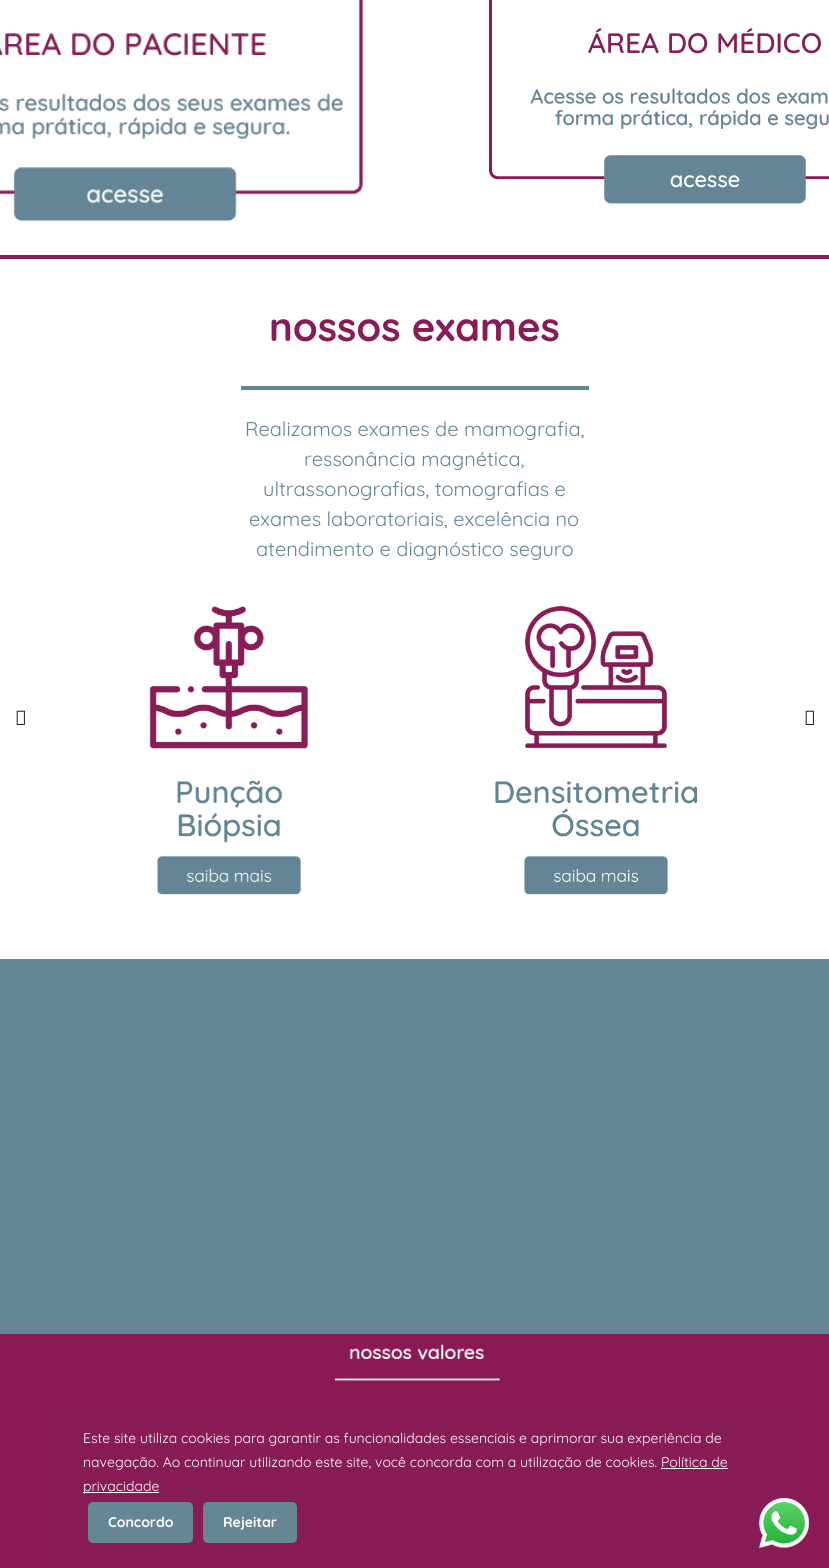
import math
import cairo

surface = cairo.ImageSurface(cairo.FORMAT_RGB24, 829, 1568)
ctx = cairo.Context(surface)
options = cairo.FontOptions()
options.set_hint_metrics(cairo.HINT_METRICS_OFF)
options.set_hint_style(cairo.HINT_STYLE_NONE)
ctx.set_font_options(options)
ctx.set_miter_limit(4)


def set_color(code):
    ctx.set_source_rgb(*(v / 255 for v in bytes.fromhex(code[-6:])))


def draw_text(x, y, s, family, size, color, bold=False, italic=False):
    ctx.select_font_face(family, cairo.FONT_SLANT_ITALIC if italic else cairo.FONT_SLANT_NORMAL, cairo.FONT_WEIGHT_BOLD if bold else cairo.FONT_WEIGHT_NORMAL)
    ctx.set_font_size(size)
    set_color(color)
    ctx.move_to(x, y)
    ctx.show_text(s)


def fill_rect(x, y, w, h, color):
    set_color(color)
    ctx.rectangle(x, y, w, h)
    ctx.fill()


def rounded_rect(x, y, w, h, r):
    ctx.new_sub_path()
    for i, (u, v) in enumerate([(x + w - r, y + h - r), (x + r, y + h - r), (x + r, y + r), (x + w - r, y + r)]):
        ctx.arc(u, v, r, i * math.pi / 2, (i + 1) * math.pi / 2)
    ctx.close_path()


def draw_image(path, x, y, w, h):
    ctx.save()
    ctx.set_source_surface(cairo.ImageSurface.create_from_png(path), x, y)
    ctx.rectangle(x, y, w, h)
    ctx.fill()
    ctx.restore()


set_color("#ffffff")
ctx.paint()
draw_image("assets/img1.png", 0, 0, 363, 222)
draw_image("assets/img2.png", 489, 0, 340, 204)
fill_rect(0, 255, 829, 4, "#881c56")
draw_text(269, 341, "nossos exames", "Quicksand", 40, "#881c56", bold=True)
fill_rect(241, 386, 348, 4, "#638595")
draw_text(245, 436, "Realizamos exames de mamografia,", "Quicksand", 20, "#638595")
draw_text(304, 466, "ressonância magnética,", "Quicksand", 20, "#638595")
draw_text(263, 496, "ultrassonografias, tomografias e", "Quicksand", 20, "#638595")
draw_text(249, 526, "exames laboratoriais, excelência no", "Quicksand", 20, "#638595")
draw_text(256, 556, "atendimento e diagnóstico seguro", "Quicksand", 20, "#638595")
draw_image("assets/img3.png", 16, 710, 9, 15)
draw_image("assets/img4.png", 149, 606, 159, 289)
draw_image("assets/img5.png", 495, 606, 203, 289)
draw_image("assets/img3.png", 805, 710, 9, 15)
fill_rect(0, 959, 829, 375, "#638595")
draw_image("assets/img6.png", 0, 1334, 829, 234)
set_color("#881c56")
rounded_rect(53, 1405, 746, 163, 8)
ctx.fill()
draw_text(83, 1443, "Este site utiliza cookies para garantir as funcionalidades essenciais e aprimorar sua experiência de", "Quicksand", 14, "#ffffff")
draw_text(83, 1467, "navegação. Ao continuar utilizando este site, você concorda com a utilização de cookies. Política de", "Quicksand", 14, "#ffffff")
fill_rect(661, 1468, 67, 1, "#ffffff")
fill_rect(83, 1492, 76, 1, "#ffffff")
draw_text(83, 1491, "privacidade", "Quicksand", 14, "#ffffff")
set_color("#658795")
rounded_rect(88, 1502, 105, 41, 5)
ctx.fill()
draw_text(108, 1527, "Concordo", "Quicksand", 14, "#ffffff", bold=True)
set_color("#658795")
rounded_rect(203, 1502, 94, 41, 5)
ctx.fill()
draw_text(223, 1527, "Rejeitar", "Quicksand", 14, "#ffffff", bold=True)
draw_image("assets/img7.png", 759, 1498, 50, 50)
surface.write_to_png("output.png")
